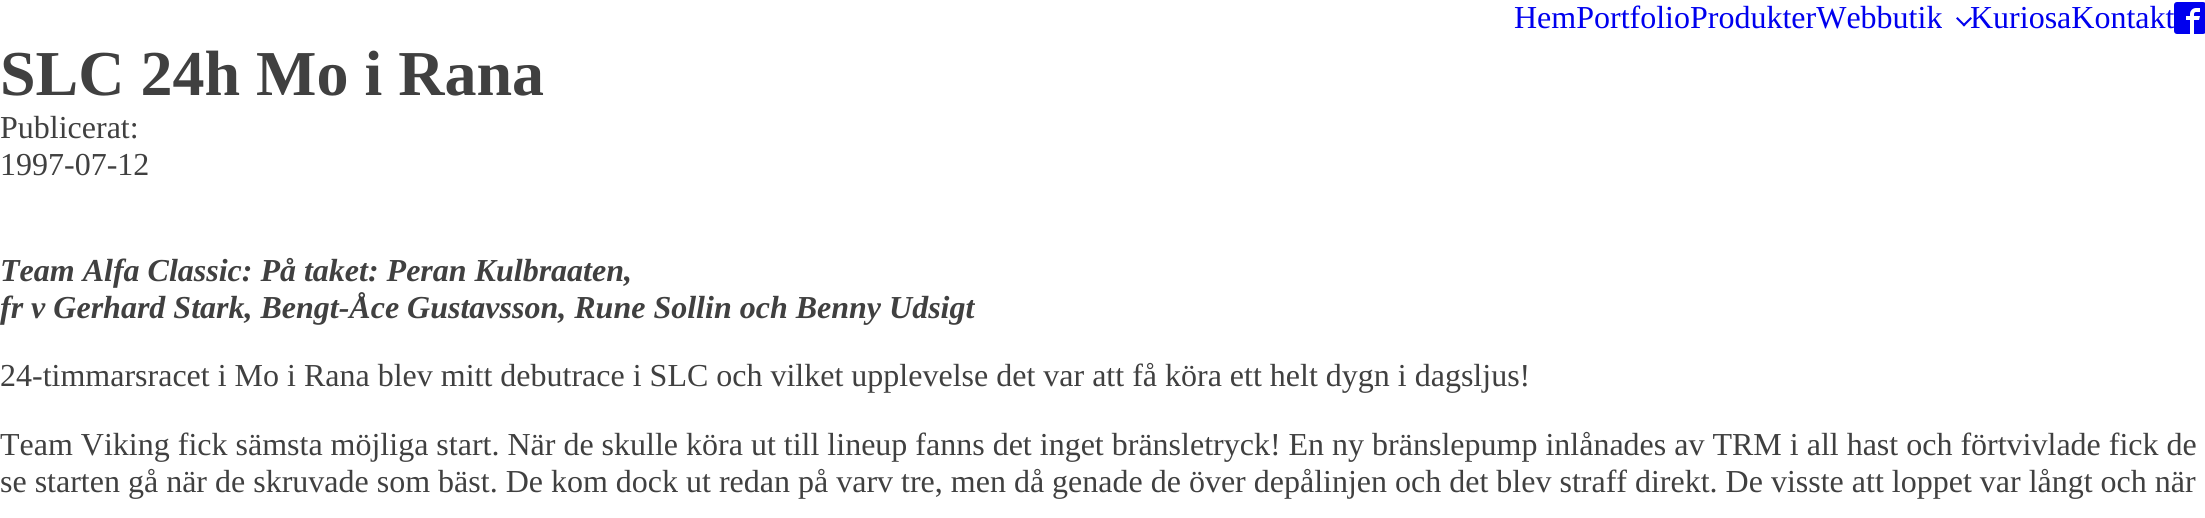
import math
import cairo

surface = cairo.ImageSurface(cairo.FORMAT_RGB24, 2205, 518)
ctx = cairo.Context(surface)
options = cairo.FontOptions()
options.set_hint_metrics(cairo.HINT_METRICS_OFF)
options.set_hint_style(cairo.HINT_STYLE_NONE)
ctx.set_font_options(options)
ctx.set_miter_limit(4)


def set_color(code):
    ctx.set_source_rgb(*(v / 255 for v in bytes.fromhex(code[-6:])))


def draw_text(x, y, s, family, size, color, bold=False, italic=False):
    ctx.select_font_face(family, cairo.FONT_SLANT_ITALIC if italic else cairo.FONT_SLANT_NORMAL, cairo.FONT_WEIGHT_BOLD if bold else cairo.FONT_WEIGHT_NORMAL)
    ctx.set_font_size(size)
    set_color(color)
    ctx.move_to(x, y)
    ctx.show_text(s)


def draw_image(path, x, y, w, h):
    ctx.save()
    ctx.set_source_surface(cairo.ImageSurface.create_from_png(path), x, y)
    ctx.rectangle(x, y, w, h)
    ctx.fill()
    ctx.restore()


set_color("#ffffff")
ctx.paint()
draw_text(1514, 28, "HemPortfolioProdukterWebbutik", "Liberation Serif", 32, "#0000ee")
ctx.new_path()
ctx.move_to(1972, 18.5)
ctx.line_to(1964, 26.5)
ctx.line_to(1962.5, 25)
ctx.line_to(1970.5, 17)
ctx.close_path()
ctx.fill()
ctx.new_path()
ctx.move_to(1965.5, 25)
ctx.line_to(1964, 26.5)
ctx.line_to(1956, 18.5)
ctx.line_to(1957.5, 17)
ctx.close_path()
ctx.fill()
draw_text(1970, 28, "KuriosaKontakt", "Liberation Serif", 32, "#0000ee")
draw_image("assets/img1.png", 2174, 2, 31, 32)
draw_text(0, 95, "SLC 24h Mo i Rana", "Liberation Serif", 64, "#404040", bold=True)
draw_text(0, 138, "Publicerat:", "Liberation Serif", 32, "#404040")
draw_text(0, 175, "1997-07-12", "Liberation Serif", 32, "#404040")
draw_text(0, 281, "Team Alfa Classic: På taket: Peran Kulbraaten,", "Liberation Serif", 32, "#404040", bold=True, italic=True)
draw_text(0, 318, "fr v Gerhard Stark, Bengt-Åce Gustavsson, Rune Sollin och Benny Udsigt", "Liberation Serif", 32, "#404040", bold=True, italic=True)
draw_text(0, 386, "24-timmarsracet i Mo i Rana blev mitt debutrace i SLC och vilket upplevelse det var att få köra ett helt dygn i dagsljus!", "Liberation Serif", 32, "#404040")
draw_text(0, 455, "Team Viking fick sämsta möjliga start. När de skulle köra ut till lineup fanns det inget bränsletryck! En ny bränslepump inlånades av TRM i all hast och förtvivlade fick de", "Liberation Serif", 32, "#404040")
draw_text(0, 492, "se starten gå när de skruvade som bäst. De kom dock ut redan på varv tre, men då genade de över depålinjen och det blev straff direkt. De visste att loppet var långt och när", "Liberation Serif", 32, "#404040")
surface.write_to_png("output.png")
